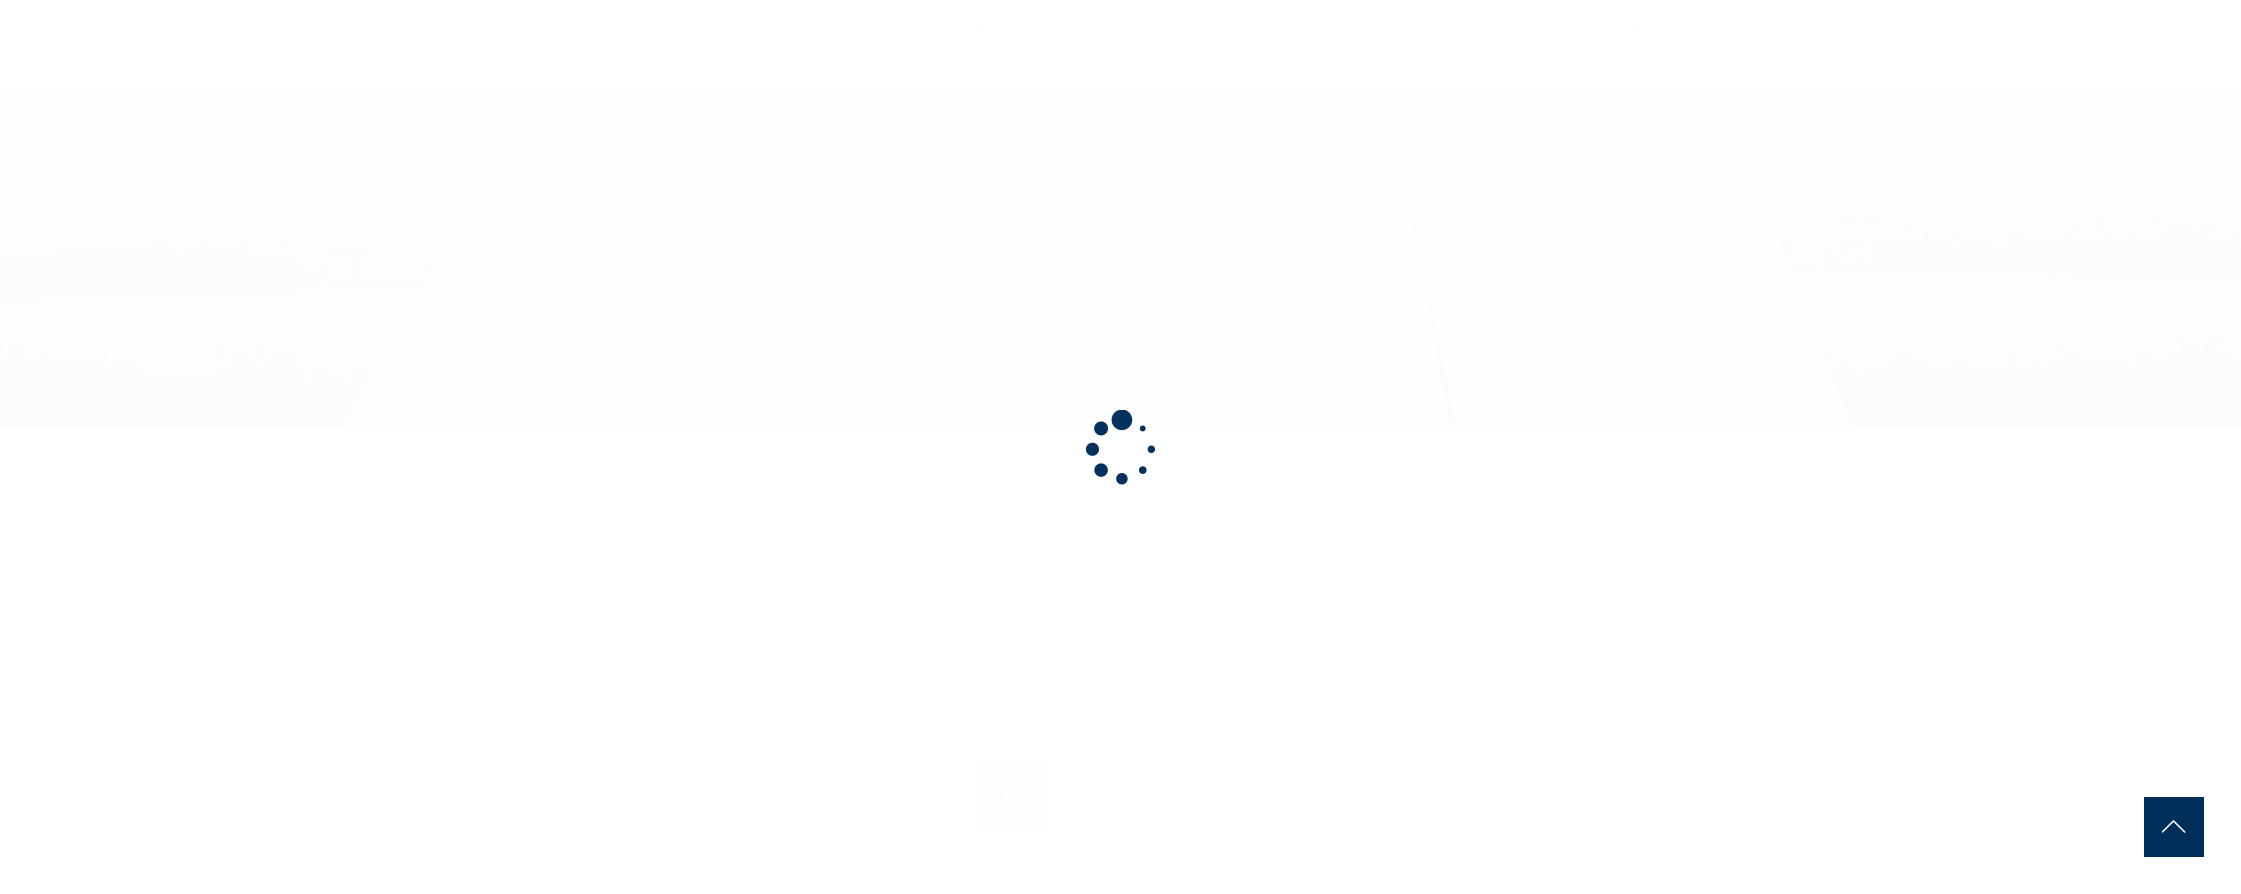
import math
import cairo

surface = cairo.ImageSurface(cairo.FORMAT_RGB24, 2241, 894)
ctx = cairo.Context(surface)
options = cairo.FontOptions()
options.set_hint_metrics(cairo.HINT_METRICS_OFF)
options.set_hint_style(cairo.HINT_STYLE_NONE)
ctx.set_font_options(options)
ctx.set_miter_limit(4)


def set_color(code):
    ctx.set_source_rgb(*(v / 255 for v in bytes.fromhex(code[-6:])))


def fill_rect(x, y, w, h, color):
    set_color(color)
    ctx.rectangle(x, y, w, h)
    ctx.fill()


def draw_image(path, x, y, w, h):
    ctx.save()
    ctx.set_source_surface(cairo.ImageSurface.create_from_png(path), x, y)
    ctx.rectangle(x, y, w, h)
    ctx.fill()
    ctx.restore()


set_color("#ffffff")
ctx.paint()
draw_image("assets/img1.png", 975, 22, 14, 8)
draw_image("assets/img1.png", 1629, 22, 14, 8)
draw_image("assets/img2.png", 0, 91, 2241, 338)
fill_rect(978, 765, 68, 68, "#fcfdfd")
draw_image("assets/img3.png", 1002, 792, 20, 20)
draw_image("assets/img4.png", 1085, 410, 71, 75)
fill_rect(2144, 797, 60, 60, "#002e5b")
draw_image("assets/img5.png", 2162, 820, 24, 13)
surface.write_to_png("output.png")
